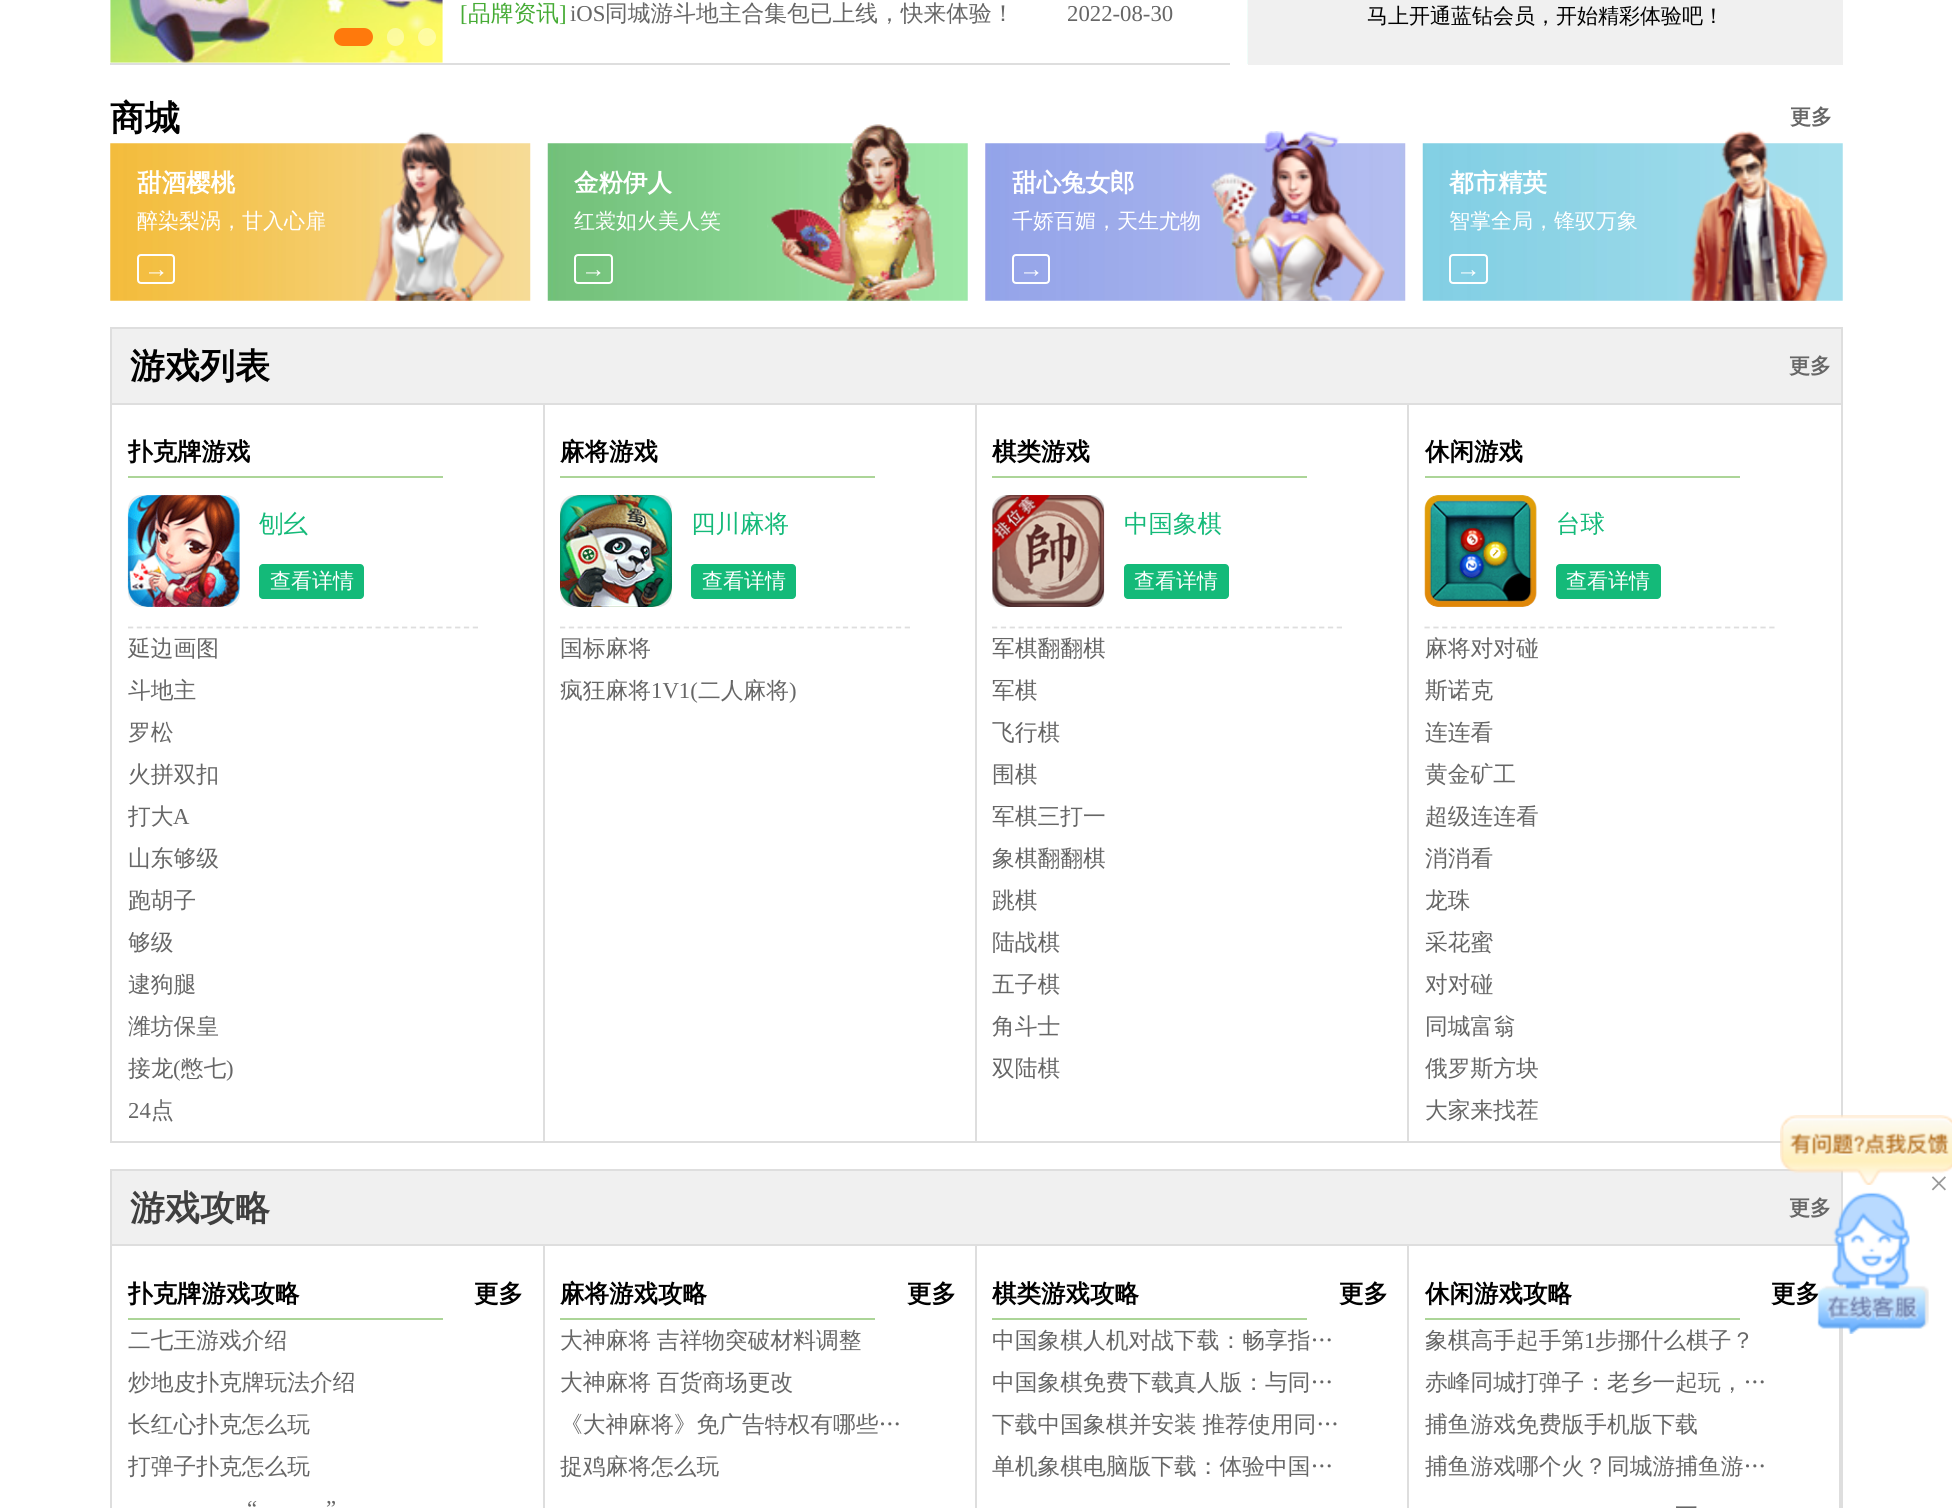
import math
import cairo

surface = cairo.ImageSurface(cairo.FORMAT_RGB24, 1952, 1508)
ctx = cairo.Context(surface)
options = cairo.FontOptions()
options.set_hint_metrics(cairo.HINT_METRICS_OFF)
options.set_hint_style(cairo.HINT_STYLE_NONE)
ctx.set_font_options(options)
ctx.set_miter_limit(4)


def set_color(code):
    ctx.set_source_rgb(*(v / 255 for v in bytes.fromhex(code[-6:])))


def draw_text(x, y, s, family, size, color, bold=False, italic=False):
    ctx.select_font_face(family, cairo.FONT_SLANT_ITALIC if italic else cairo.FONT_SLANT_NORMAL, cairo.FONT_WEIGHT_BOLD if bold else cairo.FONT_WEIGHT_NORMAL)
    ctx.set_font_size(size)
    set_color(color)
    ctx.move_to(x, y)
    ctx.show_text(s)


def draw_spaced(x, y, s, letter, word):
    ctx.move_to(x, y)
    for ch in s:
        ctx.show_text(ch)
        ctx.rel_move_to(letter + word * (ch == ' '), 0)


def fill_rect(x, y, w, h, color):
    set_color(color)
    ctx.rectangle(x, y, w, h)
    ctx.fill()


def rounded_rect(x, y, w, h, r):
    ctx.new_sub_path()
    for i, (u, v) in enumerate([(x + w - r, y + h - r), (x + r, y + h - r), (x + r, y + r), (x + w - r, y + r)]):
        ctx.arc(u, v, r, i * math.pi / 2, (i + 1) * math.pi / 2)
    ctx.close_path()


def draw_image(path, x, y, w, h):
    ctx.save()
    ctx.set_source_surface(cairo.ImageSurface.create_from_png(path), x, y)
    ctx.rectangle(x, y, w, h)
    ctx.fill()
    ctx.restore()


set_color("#ffffff")
ctx.paint()
fill_rect(110, 63, 1120, 2, "#dedede")
draw_image("assets/img1.png", 110, 0, 333, 63)
set_color("#ff790c")
rounded_rect(334, 28, 39, 18, 9)
ctx.fill()
ctx.set_source_rgba(1, 1, 1, 0.4)
rounded_rect(387, 28, 17, 18, 8.5)
ctx.fill()
ctx.arc(427, 37, 9, 0, 2 * math.pi)
ctx.fill()
draw_text(460, 21, "[", "Liberation Serif", 22.75, "#46ab35")
draw_text(468, 21, "品牌资讯", "WenQuanYi Zen Hei Medium", 22.75, "#46ab35")
draw_text(559, 21, "]", "Liberation Serif", 22.75, "#46ab35")
draw_text(570, 21, "iOS", "Liberation Serif", 22.75, "#666666")
draw_text(605, 21, "同城游斗地主合集包已上线，快来体验！", "WenQuanYi Zen Hei Medium", 22.75, "#666666")
draw_text(1067, 21, "2022-08-30", "Liberation Serif", 22.75, "#666666")
draw_image("assets/img2.png", 1247, 0, 1, 64)
fill_rect(1248, 0, 595, 65, "#f0f0f0")
draw_text(1367, 23, "马上开通蓝钻会员，开始精彩体验吧！", "WenQuanYi Zen Hei Medium", 21, "#000000")
draw_text(110, 130, "商城", "WenQuanYi Zen Hei", 35, "#000000", bold=True)
draw_text(1790, 124, "更多", "WenQuanYi Zen Hei", 21, "#666666", bold=True)
draw_image("assets/img3.png", 110, 143, 421, 158)
draw_text(137, 191, "甜酒樱桃", "WenQuanYi Zen Hei", 24.5, "#ffffff", bold=True)
draw_image("assets/img4.png", 364, 132, 141, 169)
draw_text(137, 228, "醉染梨涡，甘入心扉", "WenQuanYi Zen Hei Medium", 21, "#ffffff")
rounded_rect(138, 255, 36, 28, 3)
ctx.stroke()
draw_text(144, 277, "→", "Liberation Serif", 24.5, "#ffffff")
draw_image("assets/img5.png", 547, 143, 421, 158)
draw_text(574, 191, "金粉伊人", "WenQuanYi Zen Hei", 24.5, "#ffffff", bold=True)
draw_image("assets/img6.png", 767, 124, 170, 177)
draw_text(574, 228, "红裳如火美人笑", "WenQuanYi Zen Hei Medium", 21, "#ffffff")
rounded_rect(575, 255, 37, 28, 3)
ctx.stroke()
draw_text(581, 277, "→", "Liberation Serif", 24.5, "#ffffff")
draw_image("assets/img7.png", 985, 143, 421, 158)
draw_text(1012, 191, "甜心兔女郎", "WenQuanYi Zen Hei", 24.5, "#ffffff", bold=True)
draw_image("assets/img8.png", 1210, 131, 175, 170)
draw_text(1012, 228, "千娇百媚，天生尤物", "WenQuanYi Zen Hei Medium", 21, "#ffffff")
rounded_rect(1013, 255, 36, 28, 3)
ctx.stroke()
draw_text(1019, 277, "→", "Liberation Serif", 24.5, "#ffffff")
draw_image("assets/img9.png", 1422, 143, 421, 158)
draw_text(1449, 191, "都市精英", "WenQuanYi Zen Hei", 24.5, "#ffffff", bold=True)
draw_image("assets/img10.png", 1690, 131, 138, 170)
draw_text(1449, 228, "智掌全局，锋驭万象", "WenQuanYi Zen Hei Medium", 21, "#ffffff")
rounded_rect(1450, 255, 37, 28, 3)
ctx.stroke()
draw_text(1456, 277, "→", "Liberation Serif", 24.5, "#ffffff")
ctx.rectangle(111, 328, 1731, 814)
set_color("#dedede")
ctx.stroke()
fill_rect(112, 329, 1729, 74, "#f0f0f0")
fill_rect(112, 403, 1729, 2, "#dedede")
draw_text(130, 378, "游戏列表", "WenQuanYi Zen Hei", 35, "#000000", bold=True)
draw_text(1789, 373, "更多", "WenQuanYi Zen Hei", 21, "#666666", bold=True)
fill_rect(543, 404, 2, 737, "#dedede")
fill_rect(128, 476, 315, 2, "#acd598")
draw_text(128, 460, "扑克牌游戏", "WenQuanYi Zen Hei", 24.5, "#000000", bold=True)
ctx.new_path()
ctx.move_to(128, 627.5)
ctx.line_to(478, 627.5)
set_color("#dedede")
ctx.set_line_width(1.8)
ctx.set_dash([5.25, 3.59])
ctx.stroke()
set_color("#eeeeee")
rounded_rect(128, 495, 112, 112, 14)
ctx.fill()
draw_image("assets/img11.png", 127, 495, 113, 112)
draw_text(259, 532, "刨幺", "WenQuanYi Zen Hei Medium", 24.5, "#14ba79")
rounded_rect(259, 564, 105, 35, 4)
ctx.fill()
draw_text(270, 588, "查看详情", "WenQuanYi Zen Hei Medium", 21, "#ffffff")
draw_text(128, 656, "延边画图", "WenQuanYi Zen Hei Medium", 22.75, "#666666")
draw_text(128, 698, "斗地主", "WenQuanYi Zen Hei Medium", 22.75, "#666666")
draw_text(128, 740, "罗松", "WenQuanYi Zen Hei Medium", 22.75, "#666666")
draw_text(128, 782, "火拼双扣", "WenQuanYi Zen Hei Medium", 22.75, "#666666")
draw_text(128, 824, "打大", "WenQuanYi Zen Hei Medium", 22.75, "#666666")
draw_text(173, 824, "A", "Liberation Serif", 22.75, "#666666")
draw_text(128, 866, "山东够级", "WenQuanYi Zen Hei Medium", 22.75, "#666666")
draw_text(128, 908, "跑胡子", "WenQuanYi Zen Hei Medium", 22.75, "#666666")
draw_text(128, 950, "够级", "WenQuanYi Zen Hei Medium", 22.75, "#666666")
draw_text(128, 992, "逮狗腿", "WenQuanYi Zen Hei Medium", 22.75, "#666666")
draw_text(128, 1034, "潍坊保皇", "WenQuanYi Zen Hei Medium", 22.75, "#666666")
draw_text(128, 1076, "接龙", "WenQuanYi Zen Hei Medium", 22.75, "#666666")
draw_text(173, 1076, "(", "Liberation Serif", 22.75, "#666666")
draw_text(181, 1076, "憋七", "WenQuanYi Zen Hei Medium", 22.75, "#666666")
draw_text(226, 1076, ")", "Liberation Serif", 22.75, "#666666")
draw_text(128, 1118, "24", "Liberation Serif", 22.75, "#666666")
draw_text(151, 1118, "点", "WenQuanYi Zen Hei Medium", 22.75, "#666666")
fill_rect(975, 404, 2, 737, "#dedede")
fill_rect(560, 476, 315, 2, "#acd598")
draw_text(560, 460, "麻将游戏", "WenQuanYi Zen Hei", 24.5, "#000000", bold=True)
ctx.new_path()
ctx.move_to(560, 627.5)
ctx.line_to(910, 627.5)
set_color("#dedede")
ctx.stroke()
set_color("#eeeeee")
rounded_rect(560, 495, 112, 112, 14)
ctx.fill()
draw_image("assets/img12.png", 560, 495, 112, 112)
draw_text(691, 532, "四川麻将", "WenQuanYi Zen Hei Medium", 24.5, "#14ba79")
rounded_rect(691, 564, 105, 35, 4)
ctx.fill()
draw_text(702, 588, "查看详情", "WenQuanYi Zen Hei Medium", 21, "#ffffff")
draw_text(560, 656, "国标麻将", "WenQuanYi Zen Hei Medium", 22.75, "#666666")
draw_text(560, 698, "疯狂麻将", "WenQuanYi Zen Hei Medium", 22.75, "#666666")
draw_text(651, 698, "1V1(", "Liberation Serif", 22.75, "#666666")
draw_text(698, 698, "二人麻将", "WenQuanYi Zen Hei Medium", 22.75, "#666666")
draw_text(789, 698, ")", "Liberation Serif", 22.75, "#666666")
fill_rect(1407, 404, 2, 737, "#dedede")
fill_rect(992, 476, 315, 2, "#acd598")
draw_text(992, 460, "棋类游戏", "WenQuanYi Zen Hei", 24.5, "#000000", bold=True)
ctx.new_path()
ctx.move_to(992, 627.5)
ctx.line_to(1342, 627.5)
set_color("#dedede")
ctx.stroke()
set_color("#eeeeee")
rounded_rect(992, 495, 112, 112, 14)
ctx.fill()
draw_image("assets/img13.png", 992, 495, 113, 112)
draw_text(1124, 532, "中国象棋", "WenQuanYi Zen Hei Medium", 24.5, "#14ba79")
rounded_rect(1124, 564, 105, 35, 4)
ctx.fill()
draw_text(1134, 588, "查看详情", "WenQuanYi Zen Hei Medium", 21, "#ffffff")
draw_text(992, 656, "军棋翻翻棋", "WenQuanYi Zen Hei Medium", 22.75, "#666666")
draw_text(992, 698, "军棋", "WenQuanYi Zen Hei Medium", 22.75, "#666666")
draw_text(992, 740, "飞行棋", "WenQuanYi Zen Hei Medium", 22.75, "#666666")
draw_text(992, 782, "围棋", "WenQuanYi Zen Hei Medium", 22.75, "#666666")
draw_text(992, 824, "军棋三打一", "WenQuanYi Zen Hei Medium", 22.75, "#666666")
draw_text(992, 866, "象棋翻翻棋", "WenQuanYi Zen Hei Medium", 22.75, "#666666")
draw_text(992, 908, "跳棋", "WenQuanYi Zen Hei Medium", 22.75, "#666666")
draw_text(992, 950, "陆战棋", "WenQuanYi Zen Hei Medium", 22.75, "#666666")
draw_text(992, 992, "五子棋", "WenQuanYi Zen Hei Medium", 22.75, "#666666")
draw_text(992, 1034, "角斗士", "WenQuanYi Zen Hei Medium", 22.75, "#666666")
draw_text(992, 1076, "双陆棋", "WenQuanYi Zen Hei Medium", 22.75, "#666666")
fill_rect(1425, 476, 315, 2, "#acd598")
draw_text(1425, 460, "休闲游戏", "WenQuanYi Zen Hei", 24.5, "#000000", bold=True)
ctx.new_path()
ctx.move_to(1424.5, 627.5)
ctx.line_to(1774.5, 627.5)
set_color("#dedede")
ctx.stroke()
set_color("#eeeeee")
rounded_rect(1425, 495, 112, 112, 14)
ctx.fill()
draw_image("assets/img14.png", 1424, 495, 113, 112)
draw_text(1556, 532, "台球", "WenQuanYi Zen Hei Medium", 24.5, "#14ba79")
rounded_rect(1556, 564, 105, 35, 4)
ctx.fill()
draw_text(1566, 588, "查看详情", "WenQuanYi Zen Hei Medium", 21, "#ffffff")
draw_text(1425, 656, "麻将对对碰", "WenQuanYi Zen Hei Medium", 22.75, "#666666")
draw_text(1425, 698, "斯诺克", "WenQuanYi Zen Hei Medium", 22.75, "#666666")
draw_text(1425, 740, "连连看", "WenQuanYi Zen Hei Medium", 22.75, "#666666")
draw_text(1425, 782, "黄金矿工", "WenQuanYi Zen Hei Medium", 22.75, "#666666")
draw_text(1425, 824, "超级连连看", "WenQuanYi Zen Hei Medium", 22.75, "#666666")
draw_text(1425, 866, "消消看", "WenQuanYi Zen Hei Medium", 22.75, "#666666")
draw_text(1425, 908, "龙珠", "WenQuanYi Zen Hei Medium", 22.75, "#666666")
draw_text(1425, 950, "采花蜜", "WenQuanYi Zen Hei Medium", 22.75, "#666666")
draw_text(1425, 992, "对对碰", "WenQuanYi Zen Hei Medium", 22.75, "#666666")
draw_text(1425, 1034, "同城富翁", "WenQuanYi Zen Hei Medium", 22.75, "#666666")
draw_text(1425, 1076, "俄罗斯方块", "WenQuanYi Zen Hei Medium", 22.75, "#666666")
draw_text(1425, 1118, "大家来找茬", "WenQuanYi Zen Hei Medium", 22.75, "#666666")
ctx.rectangle(111, 1170, 1731, 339)
set_color("#dedede")
ctx.set_line_width(2)
ctx.set_dash([])
ctx.stroke()
fill_rect(112, 1171, 1729, 73, "#f0f0f0")
fill_rect(112, 1244, 1729, 2, "#dedede")
draw_text(130, 1220, "游戏攻略", "WenQuanYi Zen Hei", 35, "#3f3f3f", bold=True)
draw_text(1789, 1215, "更多", "WenQuanYi Zen Hei", 21, "#666666", bold=True)
fill_rect(543, 1246, 2, 262, "#dedede")
fill_rect(128, 1318, 315, 2, "#acd598")
draw_text(128, 1302, "扑克牌游戏攻略", "WenQuanYi Zen Hei", 24.5, "#000000", bold=True)
draw_text(474, 1302, "更多", "WenQuanYi Zen Hei", 24.5, "#000000", bold=True)
draw_text(128, 1348, "二七王游戏介绍", "WenQuanYi Zen Hei Medium", 22.75, "#666666")
draw_text(128, 1390, "炒地皮扑克牌玩法介绍", "WenQuanYi Zen Hei Medium", 22.75, "#666666")
draw_text(128, 1432, "长红心扑克怎么玩", "WenQuanYi Zen Hei Medium", 22.75, "#666666")
draw_text(128, 1474, "打弹子扑克怎么玩", "WenQuanYi Zen Hei Medium", 22.75, "#666666")
draw_text(247, 1516, "“", "Liberation Serif", 22.75, "#666666")
draw_text(326, 1516, "”", "Liberation Serif", 22.75, "#666666")
fill_rect(975, 1246, 2, 262, "#dedede")
fill_rect(560, 1318, 315, 2, "#acd598")
draw_text(560, 1302, "麻将游戏攻略", "WenQuanYi Zen Hei", 24.5, "#000000", bold=True)
draw_text(907, 1302, "更多", "WenQuanYi Zen Hei", 24.5, "#000000", bold=True)
ctx.select_font_face("WenQuanYi Zen Hei Medium")
ctx.set_font_size(22.75)
set_color("#666666")
draw_spaced(560, 1348, "大神麻将 吉祥物突破材料调整", 0, -1)
draw_spaced(560, 1390, "大神麻将 百货商场更改", 0, -1)
draw_text(560, 1432, "《大神麻将》免广告特权有哪些…", "WenQuanYi Zen Hei Medium", 22.75, "#666666")
draw_text(560, 1474, "捉鸡麻将怎么玩", "WenQuanYi Zen Hei Medium", 22.75, "#666666")
fill_rect(1407, 1246, 2, 262, "#dedede")
fill_rect(992, 1318, 315, 2, "#acd598")
draw_text(992, 1302, "棋类游戏攻略", "WenQuanYi Zen Hei", 24.5, "#000000", bold=True)
draw_text(1339, 1302, "更多", "WenQuanYi Zen Hei", 24.5, "#000000", bold=True)
draw_text(992, 1348, "中国象棋人机对战下载：畅享指…", "WenQuanYi Zen Hei Medium", 22.75, "#666666")
draw_text(992, 1390, "中国象棋免费下载真人版：与同…", "WenQuanYi Zen Hei Medium", 22.75, "#666666")
draw_spaced(992, 1432, "下载中国象棋并安装 推荐使用同…", 0, -1)
draw_text(992, 1474, "单机象棋电脑版下载：体验中国…", "WenQuanYi Zen Hei Medium", 22.75, "#666666")
fill_rect(1839, 1246, 2, 262, "#dedede")
fill_rect(1425, 1318, 315, 2, "#acd598")
draw_text(1425, 1302, "休闲游戏攻略", "WenQuanYi Zen Hei", 24.5, "#000000", bold=True)
draw_text(1771, 1302, "更多", "WenQuanYi Zen Hei", 24.5, "#000000", bold=True)
draw_text(1425, 1348, "象棋高手起手第", "WenQuanYi Zen Hei Medium", 22.75, "#666666")
draw_text(1584, 1348, "1", "Liberation Serif", 22.75, "#666666")
draw_text(1595, 1348, "步挪什么棋子？", "WenQuanYi Zen Hei Medium", 22.75, "#666666")
draw_text(1425, 1390, "赤峰同城打弹子：老乡一起玩，…", "WenQuanYi Zen Hei Medium", 22.75, "#666666")
draw_text(1425, 1432, "捕鱼游戏免费版手机版下载", "WenQuanYi Zen Hei Medium", 22.75, "#666666")
draw_text(1425, 1474, "捕鱼游戏哪个火？同城游捕鱼游…", "WenQuanYi Zen Hei Medium", 22.75, "#666666")
draw_text(1675, 1516, "一", "WenQuanYi Zen Hei Medium", 22.75, "#666666")
draw_image("assets/img15.png", 1817, 1192, 112, 142)
draw_image("assets/img16.png", 1780, 1115, 172, 70)
draw_text(1929, 1195, "×", "Liberation Serif", 35, "#999999")
surface.write_to_png("output.png")
